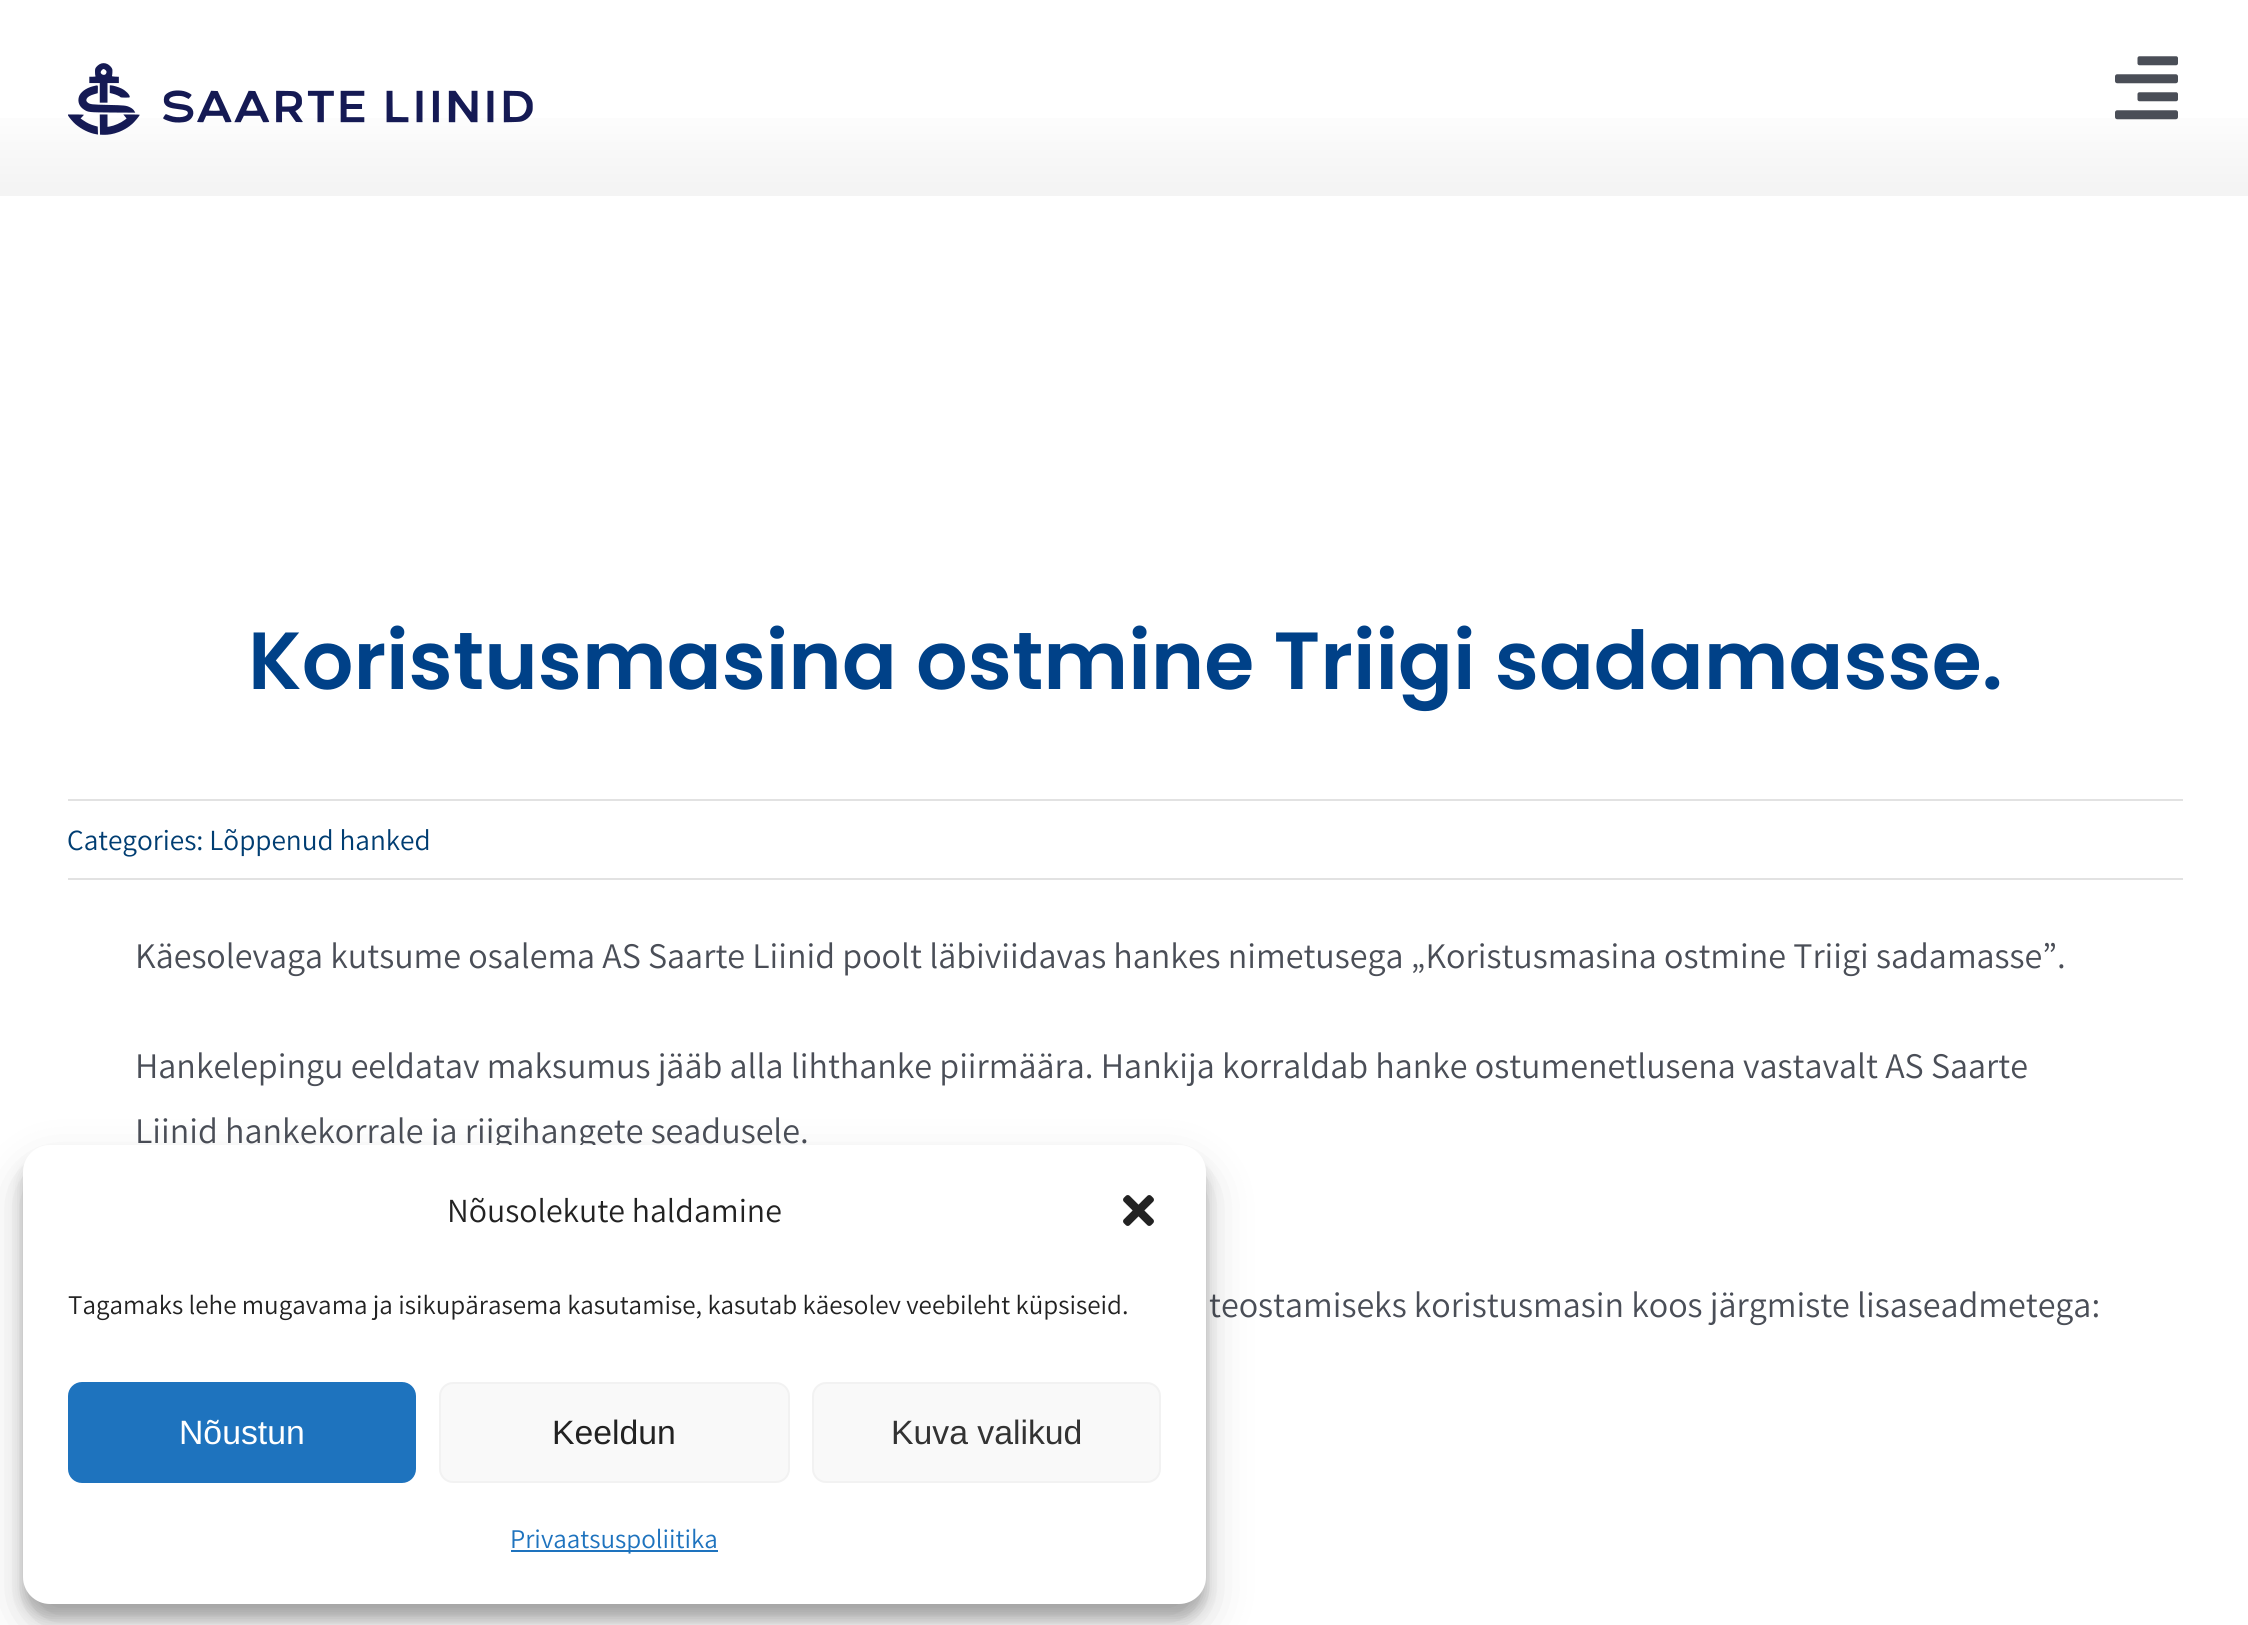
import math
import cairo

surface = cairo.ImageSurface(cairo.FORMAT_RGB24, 2248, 1625)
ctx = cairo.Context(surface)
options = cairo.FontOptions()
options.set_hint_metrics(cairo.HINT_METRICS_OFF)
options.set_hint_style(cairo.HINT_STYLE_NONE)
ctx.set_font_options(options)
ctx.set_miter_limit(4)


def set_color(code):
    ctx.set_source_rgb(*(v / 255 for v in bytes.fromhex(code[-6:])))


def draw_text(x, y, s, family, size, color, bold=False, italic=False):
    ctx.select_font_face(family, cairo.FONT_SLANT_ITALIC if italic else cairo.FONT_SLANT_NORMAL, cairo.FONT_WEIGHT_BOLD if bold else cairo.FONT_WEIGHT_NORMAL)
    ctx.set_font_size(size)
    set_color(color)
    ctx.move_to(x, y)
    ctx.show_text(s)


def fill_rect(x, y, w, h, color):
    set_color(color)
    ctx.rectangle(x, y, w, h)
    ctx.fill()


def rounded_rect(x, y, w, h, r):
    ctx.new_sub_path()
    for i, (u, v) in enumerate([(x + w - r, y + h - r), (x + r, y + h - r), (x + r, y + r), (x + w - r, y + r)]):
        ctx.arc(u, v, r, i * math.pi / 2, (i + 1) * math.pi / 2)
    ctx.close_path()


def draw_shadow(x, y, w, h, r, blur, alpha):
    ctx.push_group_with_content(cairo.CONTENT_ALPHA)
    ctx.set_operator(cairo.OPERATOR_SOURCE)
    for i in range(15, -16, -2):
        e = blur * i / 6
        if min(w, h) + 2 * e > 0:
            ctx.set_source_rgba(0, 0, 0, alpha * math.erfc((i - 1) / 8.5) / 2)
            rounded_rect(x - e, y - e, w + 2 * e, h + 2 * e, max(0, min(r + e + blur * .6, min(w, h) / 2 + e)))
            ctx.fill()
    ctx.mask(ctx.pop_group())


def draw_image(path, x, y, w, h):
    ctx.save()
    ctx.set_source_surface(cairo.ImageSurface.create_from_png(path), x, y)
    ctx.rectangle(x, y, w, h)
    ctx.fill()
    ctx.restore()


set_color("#ffffff")
ctx.paint()
gradient = cairo.LinearGradient(1125, 0, 1125, 196)
gradient.add_color_stop_rgba(0.5, 1, 1, 1, 1)
gradient.add_color_stop_rgba(0.95, 0.957, 0.957, 0.957, 1)
ctx.set_source(gradient)
ctx.rectangle(0, 118, 2248, 78)
ctx.fill()
draw_image("assets/img1.png", 68, 63, 465, 72)
draw_image("assets/img2.png", 2115, 56, 63, 64)
draw_text(248, 689, "Koristusmasina ostmine Triigi sadamasse.", "Poppins SemiBold", 81, "#004188")
fill_rect(68, 799, 2115, 2, "#e2e2e2")
fill_rect(68, 878, 2115, 2, "#e2e2e2")
draw_text(67, 850, "Categories: Lõppenud hanked", "Assistant", 29.25, "#003d72")
draw_text(135, 968, "Käesolevaga kutsume osalema AS Saarte Liinid poolt läbiviidavas hankes nimetusega „Koristusmasina ostmine Triigi sadamasse”.", "Assistant", 36, "#4a4e57")
draw_text(135, 1078, "Hankelepingu eeldatav maksumus jääb alla lihthanke piirmäära. Hankija korraldab hanke ostumenetlusena vastavalt AS Saarte", "Assistant", 36, "#4a4e57")
draw_text(135, 1143, "Liinid hankekorrale ja riigihangete seadusele.", "Assistant", 36, "#4a4e57")
draw_text(1209, 1317, "teostamiseks koristusmasin koos järgmiste lisaseadmetega:", "Assistant", 36, "#4a4e57")
set_color("#000000")
draw_shadow(23, 1159, 1183, 459, 27, 7, 0.23)
draw_shadow(23, 1168, 1183, 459, 27, 22.5, 0.19)
set_color("#ffffff")
rounded_rect(23, 1145, 1183, 459, 27)
ctx.fill()
draw_text(447, 1222, "Nõusolekute haldamine", "Assistant", 33.75, "#222222")
draw_image("assets/img3.png", 1123, 1195, 31, 31)
draw_text(68, 1314, "Tagamaks lehe mugavama ja isikupärasema kasutamise, kasutab käesolev veebileht küpsiseid.", "Assistant", 27, "#222222")
set_color("#1e73be")
rounded_rect(69, 1383, 346, 99, 13)
ctx.fill_preserve()
ctx.stroke()
draw_text(179, 1444, "Nõustun", "Liberation Sans", 33.75, "#ffffff")
set_color("#f9f9f9")
rounded_rect(440, 1383, 349, 99, 13)
ctx.fill_preserve()
set_color("#f2f2f2")
ctx.stroke()
draw_text(552, 1444, "Keeldun", "Liberation Sans", 33.75, "#222222")
set_color("#f9f9f9")
rounded_rect(813, 1383, 347, 99, 13)
ctx.fill_preserve()
set_color("#f2f2f2")
ctx.stroke()
draw_text(891, 1444, "Kuva valikud", "Liberation Sans", 33.75, "#333333")
fill_rect(511, 1550, 207, 2, "#1e73be")
draw_text(510, 1548, "Privaatsuspoliitika", "Assistant", 27, "#1e73be")
surface.write_to_png("output.png")
